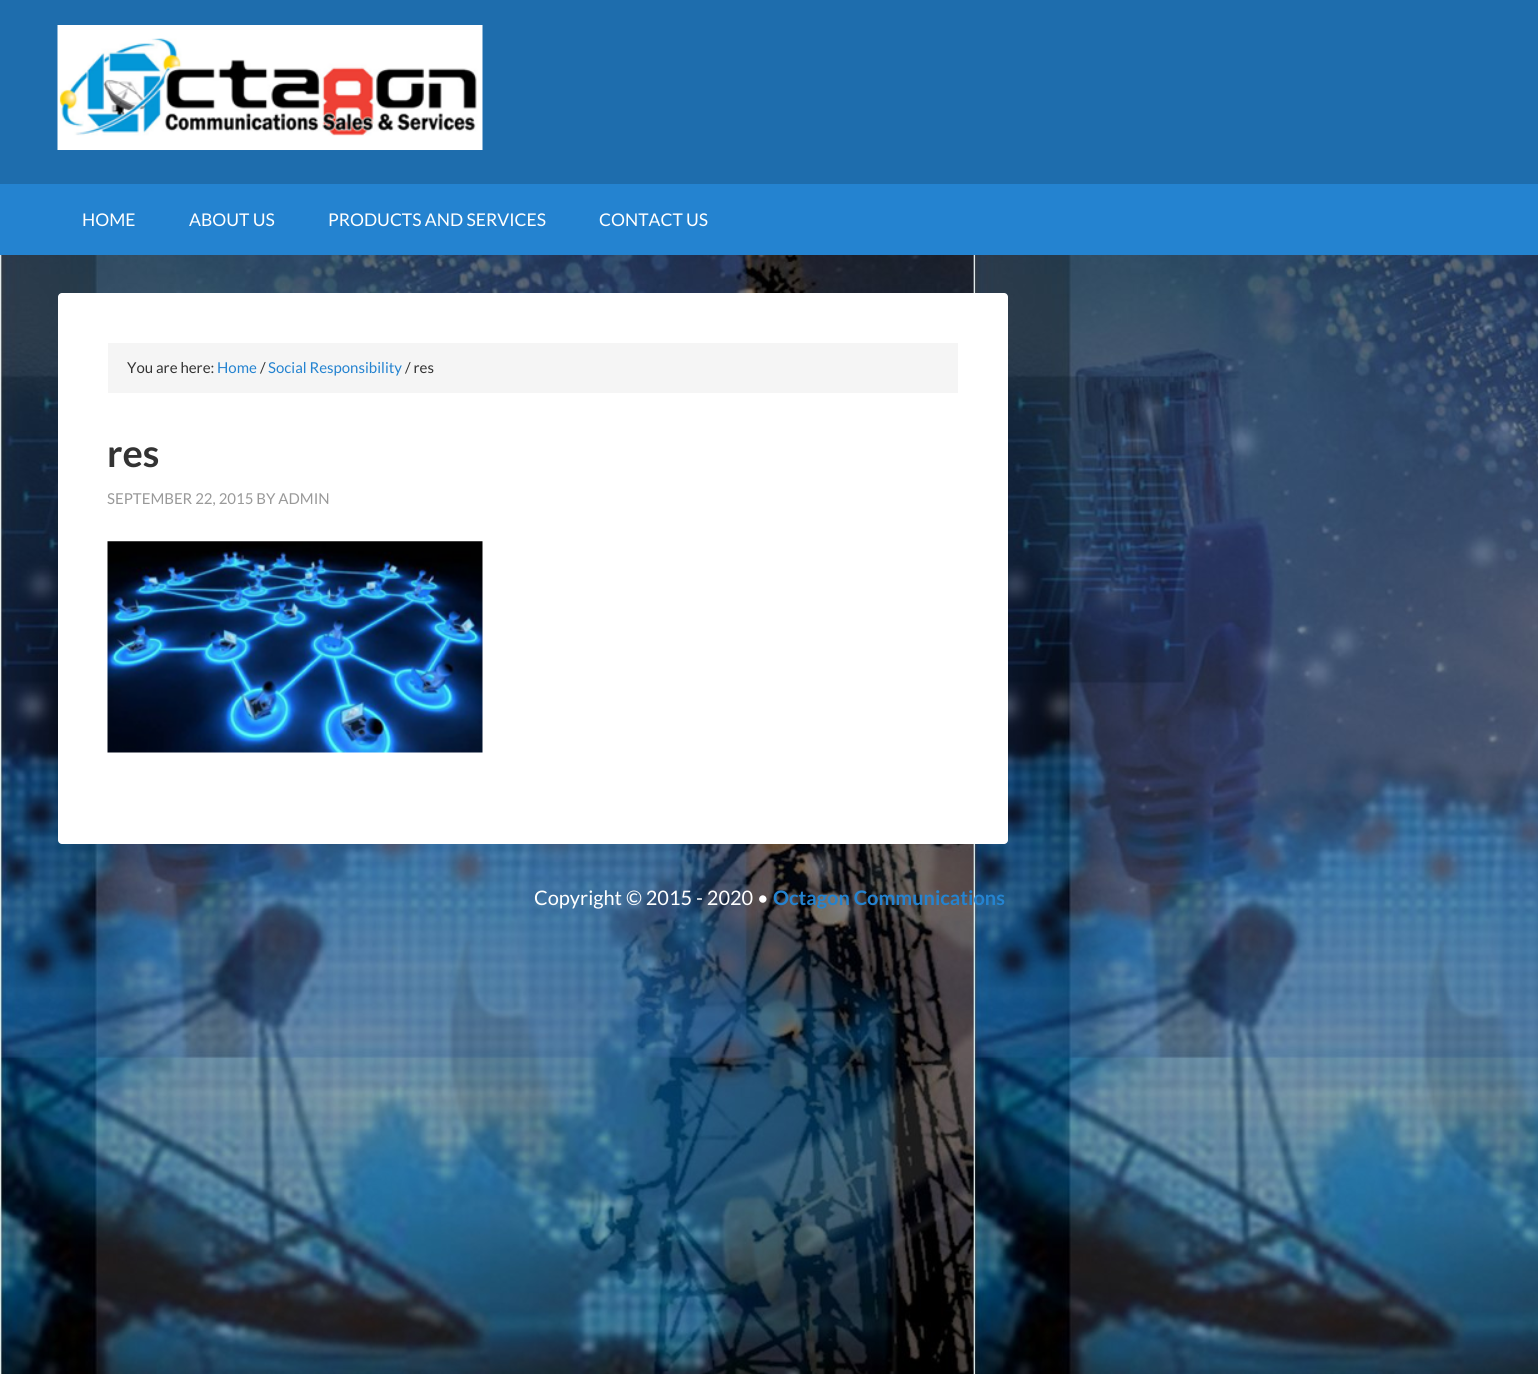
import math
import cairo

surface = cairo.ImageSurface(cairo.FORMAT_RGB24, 1538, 1374)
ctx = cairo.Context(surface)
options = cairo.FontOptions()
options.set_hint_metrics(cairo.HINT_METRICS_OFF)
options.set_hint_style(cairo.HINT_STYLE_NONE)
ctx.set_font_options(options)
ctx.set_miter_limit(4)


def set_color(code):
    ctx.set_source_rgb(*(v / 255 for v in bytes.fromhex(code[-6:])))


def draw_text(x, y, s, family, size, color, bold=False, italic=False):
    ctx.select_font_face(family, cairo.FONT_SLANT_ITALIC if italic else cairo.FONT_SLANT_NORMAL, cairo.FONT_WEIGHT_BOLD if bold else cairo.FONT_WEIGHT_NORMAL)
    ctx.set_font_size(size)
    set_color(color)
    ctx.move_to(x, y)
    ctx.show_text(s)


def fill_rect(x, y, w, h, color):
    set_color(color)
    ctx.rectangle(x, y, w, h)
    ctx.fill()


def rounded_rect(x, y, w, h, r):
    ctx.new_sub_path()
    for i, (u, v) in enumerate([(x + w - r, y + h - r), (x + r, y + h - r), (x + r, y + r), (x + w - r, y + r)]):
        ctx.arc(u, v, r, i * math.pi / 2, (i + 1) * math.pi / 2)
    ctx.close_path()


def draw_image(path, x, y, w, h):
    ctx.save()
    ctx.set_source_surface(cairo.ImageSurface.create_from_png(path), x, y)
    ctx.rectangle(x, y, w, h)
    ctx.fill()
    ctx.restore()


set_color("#ffffff")
ctx.paint()
draw_image("assets/img1.png", 0, 255, 1538, 1119)
fill_rect(0, 0, 1538, 184, "#1e6dad")
draw_image("assets/img2.png", 57, 25, 426, 125)
fill_rect(0, 184, 1538, 71, "#2483d0")
draw_text(82, 226, "HOME", "Lato", 17.5, "#ffffff")
draw_text(189, 226, "ABOUT US", "Lato", 17.5, "#ffffff")
draw_text(328, 226, "PRODUCTS AND SERVICES", "Lato", 17.5, "#ffffff")
draw_text(599, 226, "CONTACT US", "Lato", 17.5, "#ffffff")
rounded_rect(58, 293, 950, 551, 4)
ctx.fill()
fill_rect(108, 343, 850, 50, "#f5f5f5")
draw_text(127, 373, "You are here:", "Lato", 15, "#333333")
draw_text(217, 373, "Home", "Lato", 15, "#2483d0")
draw_text(260, 373, "/", "Lato", 15, "#333333")
draw_text(268, 373, "Social Responsibility", "Lato", 15, "#2483d0")
draw_text(405, 373, "/ res", "Lato", 15, "#333333")
draw_text(107, 467, "res", "Lato", 38, "#333333", bold=True)
draw_text(107, 504, "SEPTEMBER 22, 2015 BY ADMIN", "Lato", 15, "#999999")
draw_image("assets/img3.png", 107, 541, 376, 212)
draw_text(534, 905, "Copyright © 2015 - 2020 •", "Lato", 20, "#ffffff")
draw_text(773, 905, "Octagon Communications", "Lato", 20, "#2483d0", bold=True)
surface.write_to_png("output.png")
